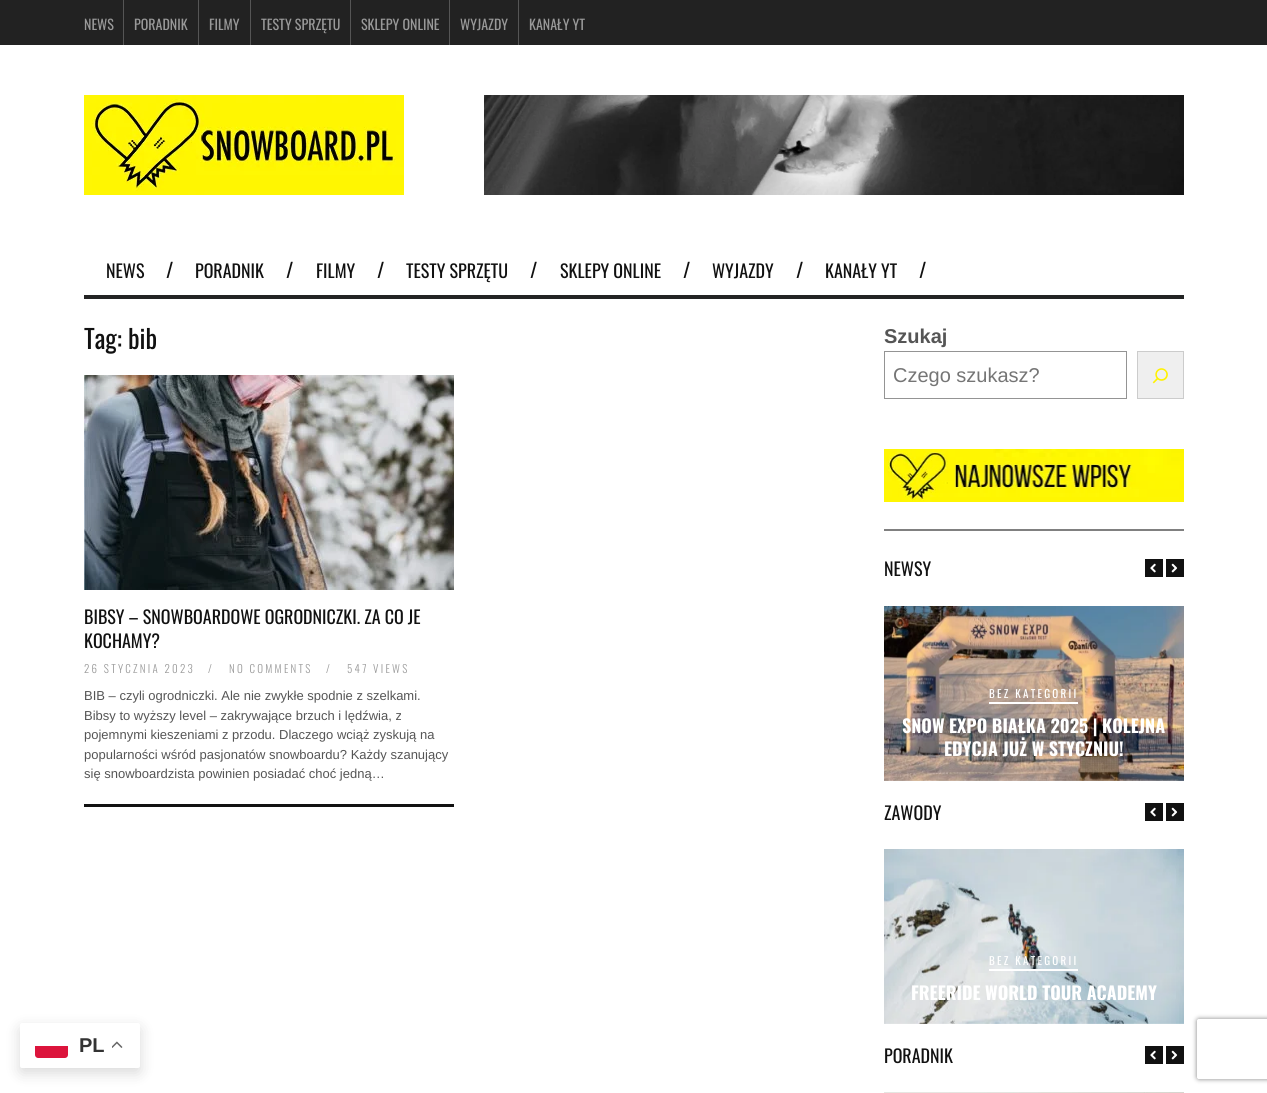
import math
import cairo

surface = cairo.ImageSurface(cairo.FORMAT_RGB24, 1267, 1093)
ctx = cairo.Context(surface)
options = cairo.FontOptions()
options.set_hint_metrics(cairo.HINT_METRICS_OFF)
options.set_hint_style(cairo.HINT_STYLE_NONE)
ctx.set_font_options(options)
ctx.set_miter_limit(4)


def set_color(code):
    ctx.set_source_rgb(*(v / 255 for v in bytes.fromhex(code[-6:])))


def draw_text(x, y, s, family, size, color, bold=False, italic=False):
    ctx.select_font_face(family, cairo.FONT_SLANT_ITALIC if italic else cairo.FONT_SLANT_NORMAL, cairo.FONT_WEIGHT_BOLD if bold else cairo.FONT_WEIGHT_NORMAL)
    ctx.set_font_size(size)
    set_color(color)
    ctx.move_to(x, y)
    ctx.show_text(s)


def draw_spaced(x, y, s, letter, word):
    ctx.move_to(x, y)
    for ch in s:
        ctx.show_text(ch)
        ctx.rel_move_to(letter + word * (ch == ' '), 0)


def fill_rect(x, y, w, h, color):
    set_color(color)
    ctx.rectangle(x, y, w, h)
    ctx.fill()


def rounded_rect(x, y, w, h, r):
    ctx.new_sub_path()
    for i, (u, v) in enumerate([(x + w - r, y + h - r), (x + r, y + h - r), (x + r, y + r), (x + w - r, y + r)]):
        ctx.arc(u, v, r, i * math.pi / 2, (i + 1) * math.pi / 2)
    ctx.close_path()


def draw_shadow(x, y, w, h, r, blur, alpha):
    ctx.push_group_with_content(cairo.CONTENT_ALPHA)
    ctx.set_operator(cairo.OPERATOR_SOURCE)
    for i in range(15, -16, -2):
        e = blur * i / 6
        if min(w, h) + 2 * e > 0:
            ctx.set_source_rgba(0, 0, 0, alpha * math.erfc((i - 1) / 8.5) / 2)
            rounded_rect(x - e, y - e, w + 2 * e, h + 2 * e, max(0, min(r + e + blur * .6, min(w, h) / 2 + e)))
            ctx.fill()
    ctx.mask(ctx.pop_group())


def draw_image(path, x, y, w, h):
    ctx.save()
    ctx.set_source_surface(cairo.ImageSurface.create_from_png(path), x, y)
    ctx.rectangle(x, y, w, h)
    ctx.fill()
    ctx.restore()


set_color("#ffffff")
ctx.paint()
fill_rect(0, 0, 1267, 45, "#222222")
fill_rect(123, 0, 1, 45, "#555555")
draw_text(84, 30, "NEWS", "Oswald", 14, "#999999")
fill_rect(198, 0, 1, 45, "#555555")
draw_text(134, 30, "PORADNIK", "Oswald", 14, "#999999")
fill_rect(250, 0, 1, 45, "#555555")
draw_text(209, 30, "FILMY", "Oswald", 14, "#999999")
fill_rect(350, 0, 1, 45, "#555555")
draw_text(261, 30, "TESTY SPRZĘTU", "Oswald", 14, "#999999")
fill_rect(449, 0, 1, 45, "#555555")
draw_text(361, 30, "SKLEPY ONLINE", "Oswald", 14, "#999999")
fill_rect(518, 0, 1, 45, "#555555")
draw_text(460, 30, "WYJAZDY", "Oswald", 14, "#999999")
draw_text(529, 30, "KANAŁY YT", "Oswald", 14, "#999999")
draw_image("assets/img1.png", 84, 95, 320, 100)
draw_image("assets/img2.png", 484, 95, 700, 100)
fill_rect(84, 295, 1100, 4, "#232424")
draw_text(106, 278, "NEWS", "Oswald", 18, "#111111")
draw_text(166, 278, "/", "Oswald", 20, "#111111")
draw_text(195, 278, "PORADNIK", "Oswald", 18, "#111111")
draw_text(286, 278, "/", "Oswald", 20, "#111111")
draw_text(316, 278, "FILMY", "Oswald", 18, "#111111")
draw_text(377, 278, "/", "Oswald", 20, "#111111")
draw_text(406, 278, "TESTY SPRZĘTU", "Oswald", 18, "#111111")
draw_text(530, 278, "/", "Oswald", 20, "#111111")
draw_text(560, 278, "SKLEPY ONLINE", "Oswald", 18, "#111111")
draw_text(683, 278, "/", "Oswald", 20, "#111111")
draw_text(712, 278, "WYJAZDY", "Oswald", 18, "#111111")
draw_text(796, 278, "/", "Oswald", 20, "#111111")
draw_text(825, 278, "KANAŁY YT", "Oswald", 18, "#111111")
draw_text(919, 278, "/", "Oswald", 20, "#111111")
draw_text(84, 349, "Tag: bib", "Oswald", 26, "#111111")
fill_rect(84, 804, 370, 3, "#111111")
draw_image("assets/img3.png", 84, 375, 370, 215)
draw_text(84, 624, "BIBSY – SNOWBOARDOWE OGRODNICZKI. ZA CO JE", "Oswald", 18, "#111111")
draw_text(84, 648, "KOCHAMY?", "Oswald", 18, "#111111")
ctx.select_font_face("Oswald Light")
ctx.set_font_size(11)
set_color("#999999")
draw_spaced(84, 673, "26 STYCZNIA 2023", 2.25, 0)
draw_spaced(208, 673, "/", 2.25, 0)
draw_spaced(229, 673, "NO COMMENTS", 2.25, 0)
draw_spaced(326, 673, "/", 2.25, 0)
draw_spaced(347, 673, "547 VIEWS", 2.25, 0)
draw_text(84, 700, "BIB – czyli ogrodniczki. Ale nie zwykłe spodnie z szelkami.", "Liberation Sans", 13, "#555555")
draw_text(84, 720, "Bibsy to wyższy level – zakrywające brzuch i lędźwia, z", "Liberation Sans", 13, "#555555")
draw_text(84, 739, "pojemnymi kieszeniami z przodu. Dlaczego wciąż zyskują na", "Liberation Sans", 13, "#555555")
draw_text(84, 759, "popularności wśród pasjonatów snowboardu? Każdy szanujący", "Liberation Sans", 13, "#555555")
draw_text(84, 778, "się snowboardzista powinien posiadać choć jedną…", "Liberation Sans", 13, "#555555")
draw_text(884, 343, "Szukaj", "Liberation Sans", 20, "#555555", bold=True)
ctx.rectangle(884.5, 351.5, 242, 47)
set_color("#949494")
ctx.set_line_width(1)
ctx.stroke()
draw_text(893, 382, "Czego szukasz?", "Liberation Sans", 20, "#757575")
set_color("#efefef")
ctx.rectangle(1137.5, 351.5, 46, 47)
ctx.fill_preserve()
set_color("#cccccc")
ctx.stroke()
draw_image("assets/img4.png", 1152, 368, 16, 16)
draw_image("assets/img5.png", 884, 449, 300, 53)
fill_rect(884, 529, 300, 2, "#808080")
draw_text(884, 576, "NEWSY", "Oswald", 18, "#111111")
fill_rect(1145, 559, 18, 18, "#111111")
draw_image("assets/img6.png", 1150, 563, 6, 10)
fill_rect(1166, 559, 18, 18, "#111111")
draw_image("assets/img7.png", 1171, 563, 7, 10)
draw_image("assets/img8.png", 884, 606, 300, 175)
fill_rect(989, 702, 89, 2, "#ffffff")
ctx.set_font_size(11)
draw_spaced(989, 698, "BEZ KATEGORII", 2.25, 0)
draw_text(902, 733, "SNOW EXPO BIAŁKA 2025 | KOLEJNA", "Oswald", 18, "#ffffff", bold=True)
draw_text(944, 756, "EDYCJA JUŻ W STYCZNIU!", "Oswald", 18, "#ffffff", bold=True)
draw_text(884, 820, "ZAWODY", "Oswald", 18, "#111111")
fill_rect(1145, 803, 18, 18, "#111111")
draw_image("assets/img6.png", 1150, 807, 6, 10)
fill_rect(1166, 803, 18, 18, "#111111")
draw_image("assets/img7.png", 1171, 807, 7, 10)
draw_image("assets/img9.png", 884, 849, 300, 175)
fill_rect(989, 969, 89, 2, "#ffffff")
ctx.set_font_size(11)
draw_spaced(989, 965, "BEZ KATEGORII", 2.25, 0)
draw_text(911, 1000, "FREERIDE WORLD TOUR ACADEMY", "Oswald", 18, "#ffffff", bold=True)
fill_rect(1145, 1046, 18, 18, "#111111")
draw_image("assets/img6.png", 1150, 1050, 6, 10)
fill_rect(1166, 1046, 18, 18, "#111111")
draw_image("assets/img7.png", 1171, 1050, 7, 10)
draw_image("assets/img10.png", 884, 1092, 300, 1)
draw_text(884, 1063, "PORADNIK", "Oswald", 18, "#111111")
ctx.save()
ctx.set_fill_rule(cairo.FILL_RULE_EVEN_ODD)
ctx.new_path()
ctx.move_to(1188, 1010)
ctx.line_to(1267, 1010)
ctx.line_to(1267, 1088)
ctx.line_to(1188, 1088)
ctx.close_path()
ctx.move_to(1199, 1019)
ctx.line_to(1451, 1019)
ctx.curve_to(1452, 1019, 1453, 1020, 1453, 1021)
ctx.line_to(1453, 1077)
ctx.curve_to(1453, 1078, 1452, 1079, 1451, 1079)
ctx.line_to(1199, 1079)
ctx.curve_to(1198, 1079, 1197, 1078, 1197, 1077)
ctx.line_to(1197, 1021)
ctx.curve_to(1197, 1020, 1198, 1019, 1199, 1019)
ctx.close_path()
ctx.clip()
set_color("#808080")
draw_shadow(1197, 1019, 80, 60, 2, 2.5, 1)
ctx.restore()
set_color("#000000")
draw_shadow(20, 1028, 120, 45, 2, 7.5, 0.15)
set_color("#ffffff")
rounded_rect(20, 1023, 120, 45, 2)
ctx.fill()
draw_text(79, 1052, "PL", "Liberation Sans", 20, "#333333", bold=True)
draw_image("assets/img11.png", 112, 1041, 11, 7)
set_color("#dc143c")
ctx.new_path()
ctx.move_to(35, 1046)
ctx.line_to(68, 1046)
ctx.line_to(68, 1055)
ctx.curve_to(68, 1056.5, 66.5, 1058, 65, 1058)
ctx.line_to(38, 1058)
ctx.curve_to(36.5, 1058, 35, 1056.5, 35, 1055)
ctx.close_path()
ctx.fill()
surface.write_to_png("output.png")
